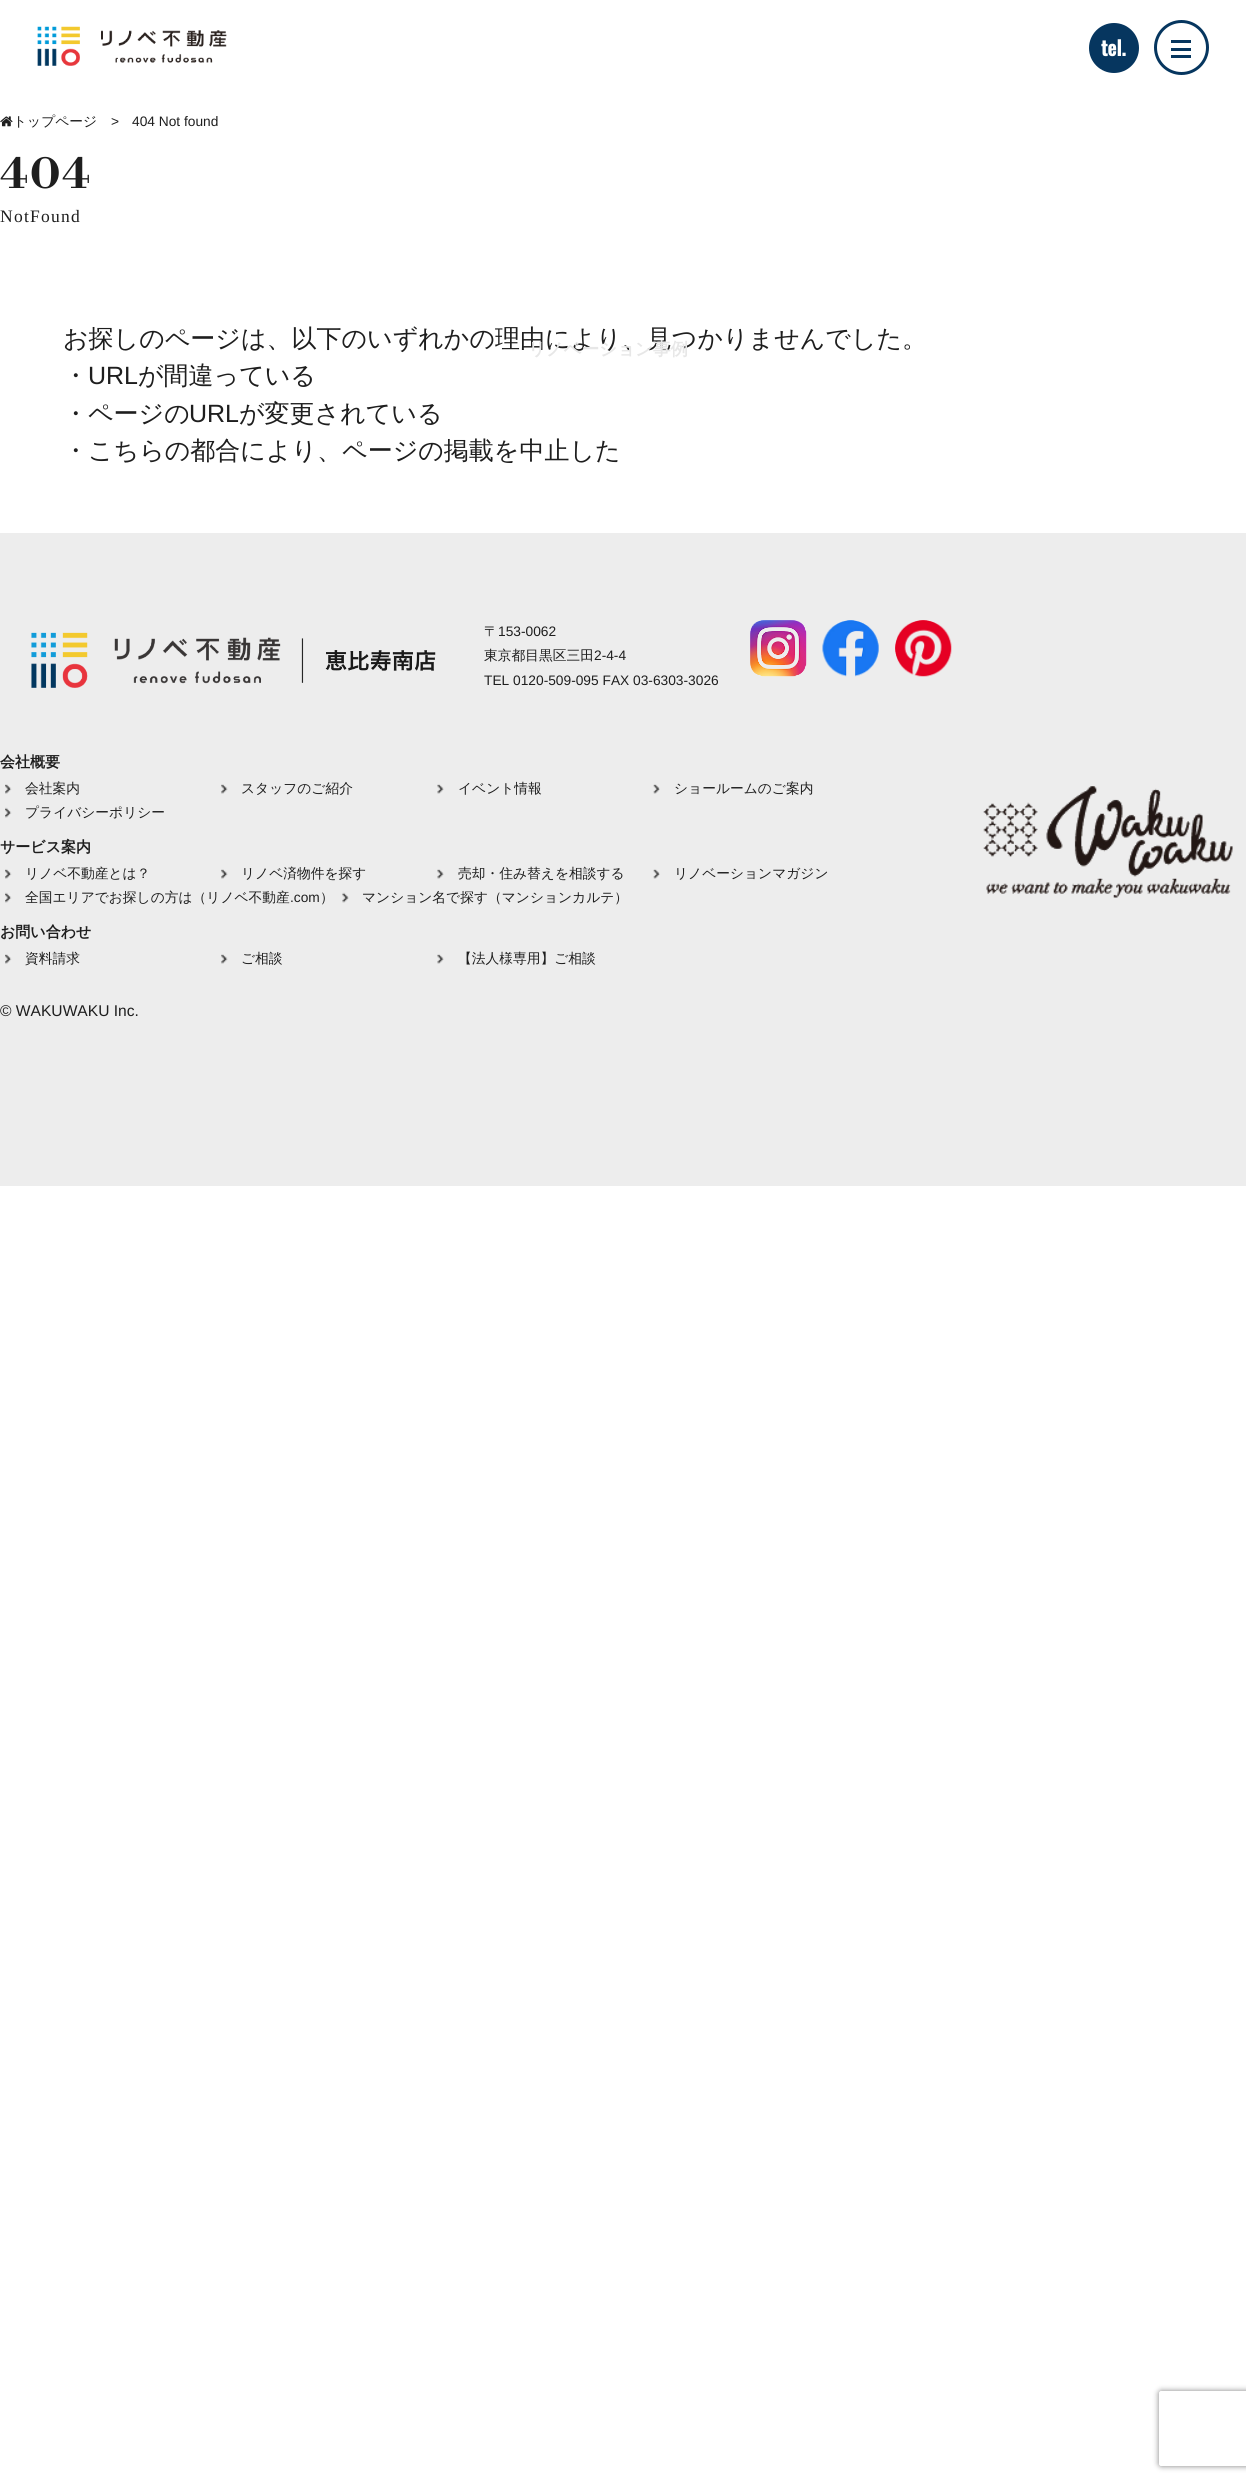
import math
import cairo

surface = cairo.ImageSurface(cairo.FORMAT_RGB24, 1246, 2483)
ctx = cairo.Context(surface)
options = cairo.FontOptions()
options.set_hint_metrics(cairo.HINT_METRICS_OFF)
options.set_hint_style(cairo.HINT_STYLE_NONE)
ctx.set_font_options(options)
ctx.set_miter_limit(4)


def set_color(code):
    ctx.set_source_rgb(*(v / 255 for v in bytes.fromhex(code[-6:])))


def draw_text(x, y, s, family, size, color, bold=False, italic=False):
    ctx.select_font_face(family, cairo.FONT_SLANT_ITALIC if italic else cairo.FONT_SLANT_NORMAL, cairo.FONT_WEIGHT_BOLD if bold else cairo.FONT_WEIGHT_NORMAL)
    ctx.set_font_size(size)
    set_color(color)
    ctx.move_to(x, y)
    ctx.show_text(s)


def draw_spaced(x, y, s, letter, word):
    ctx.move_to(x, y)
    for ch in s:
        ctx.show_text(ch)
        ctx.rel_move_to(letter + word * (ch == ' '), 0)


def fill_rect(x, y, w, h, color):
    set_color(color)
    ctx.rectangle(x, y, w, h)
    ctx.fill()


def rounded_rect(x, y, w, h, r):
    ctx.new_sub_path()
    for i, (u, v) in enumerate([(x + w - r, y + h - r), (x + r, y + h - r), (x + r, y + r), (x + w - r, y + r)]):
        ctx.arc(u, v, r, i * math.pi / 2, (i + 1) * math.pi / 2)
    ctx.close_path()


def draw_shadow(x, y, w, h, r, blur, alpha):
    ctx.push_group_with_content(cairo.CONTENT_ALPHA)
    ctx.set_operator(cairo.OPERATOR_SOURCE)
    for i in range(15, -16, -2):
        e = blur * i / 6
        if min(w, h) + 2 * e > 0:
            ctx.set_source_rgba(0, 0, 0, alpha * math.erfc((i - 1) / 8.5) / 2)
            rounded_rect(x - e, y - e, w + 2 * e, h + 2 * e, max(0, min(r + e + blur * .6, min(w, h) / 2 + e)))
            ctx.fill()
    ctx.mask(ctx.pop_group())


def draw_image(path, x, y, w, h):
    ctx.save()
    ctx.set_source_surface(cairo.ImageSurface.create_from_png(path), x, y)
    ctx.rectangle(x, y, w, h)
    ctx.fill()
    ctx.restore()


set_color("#ffffff")
ctx.paint()
draw_image("assets/img1.png", 0, 116, 13, 11)
draw_text(13, 126, "トップページ", "WenQuanYi Zen Hei Medium", 13.75, "#1e1e1e")
draw_text(111, 126, ">", "Liberation Sans", 13.75, "#1e1e1e")
draw_text(132, 126, "404 Not found", "Liberation Sans", 13.75, "#1e1e1e")
draw_image("assets/img2.png", 37, 26, 190, 40)
set_color("#06365f")
ctx.arc(1114, 48, 25, 0, 2 * math.pi)
ctx.fill()
draw_text(1101, 56, "tel.", "Oswald", 20, "#ffffff", bold=True)
ctx.new_path()
ctx.arc(1181.5, 47.5, 26, 0, 2 * math.pi)
set_color("#06365f")
ctx.set_line_width(3)
ctx.stroke()
fill_rect(1171, 40, 20, 3, "#06365f")
fill_rect(1171, 48, 20, 3, "#06365f")
fill_rect(1171, 55, 20, 3, "#06365f")
draw_text(63, 347, "お探しのページは、以下のいずれかの理由により、見つかりませんでした。", "WenQuanYi Zen Hei Medium", 25, "#1e1e1e")
draw_text(528, 355, "リノベーション事例", "WenQuanYi Zen Hei", 17.5, "#e7e7e7", bold=True)
ctx.select_font_face("Libre Bodoni", cairo.FONT_SLANT_NORMAL, cairo.FONT_WEIGHT_BOLD)
ctx.set_font_size(42.5)
set_color("#1e1e1e")
draw_spaced(0, 188, "404", 1.25, 0)
ctx.select_font_face("Liberation Serif")
ctx.set_font_size(17.5)
draw_spaced(0, 222, "NotFound", 1.25, 0)
draw_text(63, 384, "・", "WenQuanYi Zen Hei Medium", 25, "#1e1e1e")
draw_text(88, 384, "URL", "Liberation Sans", 25, "#1e1e1e")
draw_text(138, 384, "が間違っている", "WenQuanYi Zen Hei Medium", 25, "#1e1e1e")
draw_text(63, 422, "・ページの", "WenQuanYi Zen Hei Medium", 25, "#1e1e1e")
draw_text(189, 422, "URL", "Liberation Sans", 25, "#1e1e1e")
draw_text(239, 422, "が変更されている", "WenQuanYi Zen Hei Medium", 25, "#1e1e1e")
draw_text(63, 459, "・こちらの都合により、ページの掲載を中止した", "WenQuanYi Zen Hei Medium", 25, "#1e1e1e")
fill_rect(0, 533, 1246, 653, "#ededed")
draw_image("assets/img3.png", 31, 632, 405, 56)
draw_text(484, 636, "〒", "WenQuanYi Zen Hei Medium", 13.75, "#1e1e1e")
draw_text(498, 636, "153-0062", "Liberation Sans", 13.75, "#1e1e1e")
draw_text(484, 660, "東京都目黒区三田", "WenQuanYi Zen Hei Medium", 13.75, "#1e1e1e")
draw_text(594, 660, "2-4-4", "Liberation Sans", 13.75, "#1e1e1e")
draw_text(484, 685, "TEL 0120-509-095 FAX 03-6303-3026", "Liberation Sans", 13.75, "#1e1e1e")
draw_image("assets/img4.png", 750, 620, 57, 57)
draw_image("assets/img5.png", 822, 620, 57, 57)
draw_image("assets/img6.png", 895, 620, 57, 57)
draw_text(0, 767, "会社概要", "WenQuanYi Zen Hei", 15, "#1e1e1e", bold=True)
draw_image("assets/img7.png", 5, 784, 7, 10)
draw_text(25, 793, "会社案内", "WenQuanYi Zen Hei Medium", 13.75, "#1e1e1e")
draw_image("assets/img8.png", 221, 784, 7, 10)
draw_text(241, 793, "スタッフのご紹介", "WenQuanYi Zen Hei Medium", 13.75, "#1e1e1e")
draw_image("assets/img9.png", 437, 784, 7, 10)
draw_text(458, 793, "イベント情報", "WenQuanYi Zen Hei Medium", 13.75, "#1e1e1e")
draw_image("assets/img10.png", 653, 784, 7, 10)
draw_text(674, 793, "ショールームのご案内", "WenQuanYi Zen Hei Medium", 13.75, "#1e1e1e")
draw_image("assets/img11.png", 5, 807, 7, 11)
draw_text(25, 817, "プライバシーポリシー", "WenQuanYi Zen Hei Medium", 13.75, "#1e1e1e")
draw_text(0, 852, "サービス案内", "WenQuanYi Zen Hei", 15, "#1e1e1e", bold=True)
draw_image("assets/img7.png", 5, 869, 7, 10)
draw_text(25, 878, "リノベ不動産とは？", "WenQuanYi Zen Hei Medium", 13.75, "#1e1e1e")
draw_image("assets/img8.png", 221, 869, 7, 10)
draw_text(241, 878, "リノベ済物件を探す", "WenQuanYi Zen Hei Medium", 13.75, "#1e1e1e")
draw_image("assets/img9.png", 437, 869, 7, 10)
draw_text(458, 878, "売却・住み替えを相談する", "WenQuanYi Zen Hei Medium", 13.75, "#1e1e1e")
draw_image("assets/img10.png", 653, 869, 7, 10)
draw_text(674, 878, "リノベーションマガジン", "WenQuanYi Zen Hei Medium", 13.75, "#1e1e1e")
draw_image("assets/img11.png", 5, 892, 7, 11)
draw_text(25, 902, "全国エリアでお探しの方は（リノベ不動産", "WenQuanYi Zen Hei Medium", 13.75, "#1e1e1e")
draw_text(290, 902, ".com", "Liberation Sans", 13.75, "#1e1e1e")
draw_text(320, 902, "）", "WenQuanYi Zen Hei Medium", 13.75, "#1e1e1e")
draw_image("assets/img12.png", 342, 892, 7, 11)
draw_text(362, 902, "マンション名で探す（マンションカルテ）", "WenQuanYi Zen Hei Medium", 13.75, "#1e1e1e")
draw_text(0, 937, "お問い合わせ", "WenQuanYi Zen Hei", 15, "#1e1e1e", bold=True)
draw_image("assets/img7.png", 5, 954, 7, 10)
draw_text(25, 963, "資料請求", "WenQuanYi Zen Hei Medium", 13.75, "#1e1e1e")
draw_image("assets/img8.png", 221, 954, 7, 10)
draw_text(241, 963, "ご相談", "WenQuanYi Zen Hei Medium", 13.75, "#1e1e1e")
draw_image("assets/img9.png", 437, 954, 7, 10)
draw_text(458, 963, "【法人様専用】ご相談", "WenQuanYi Zen Hei Medium", 13.75, "#1e1e1e")
draw_image("assets/img13.png", 983, 786, 250, 112)
draw_text(0, 1016, "© WAKUWAKU Inc.", "Liberation Sans", 15.6, "#1e1e1e")
ctx.save()
ctx.set_fill_rule(cairo.FILL_RULE_EVEN_ODD)
ctx.new_path()
ctx.move_to(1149, 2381)
ctx.line_to(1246, 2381)
ctx.line_to(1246, 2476)
ctx.line_to(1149, 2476)
ctx.close_path()
ctx.move_to(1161.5, 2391)
ctx.line_to(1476.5, 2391)
ctx.curve_to(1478, 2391, 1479, 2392, 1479, 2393.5)
ctx.line_to(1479, 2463.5)
ctx.curve_to(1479, 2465, 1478, 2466, 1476.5, 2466)
ctx.line_to(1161.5, 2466)
ctx.curve_to(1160, 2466, 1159, 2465, 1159, 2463.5)
ctx.line_to(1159, 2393.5)
ctx.curve_to(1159, 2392, 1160, 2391, 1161.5, 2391)
ctx.close_path()
ctx.clip()
set_color("#808080")
draw_shadow(1159, 2391, 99, 75, 2.5, 3, 1)
ctx.restore()
surface.write_to_png("output.png")
